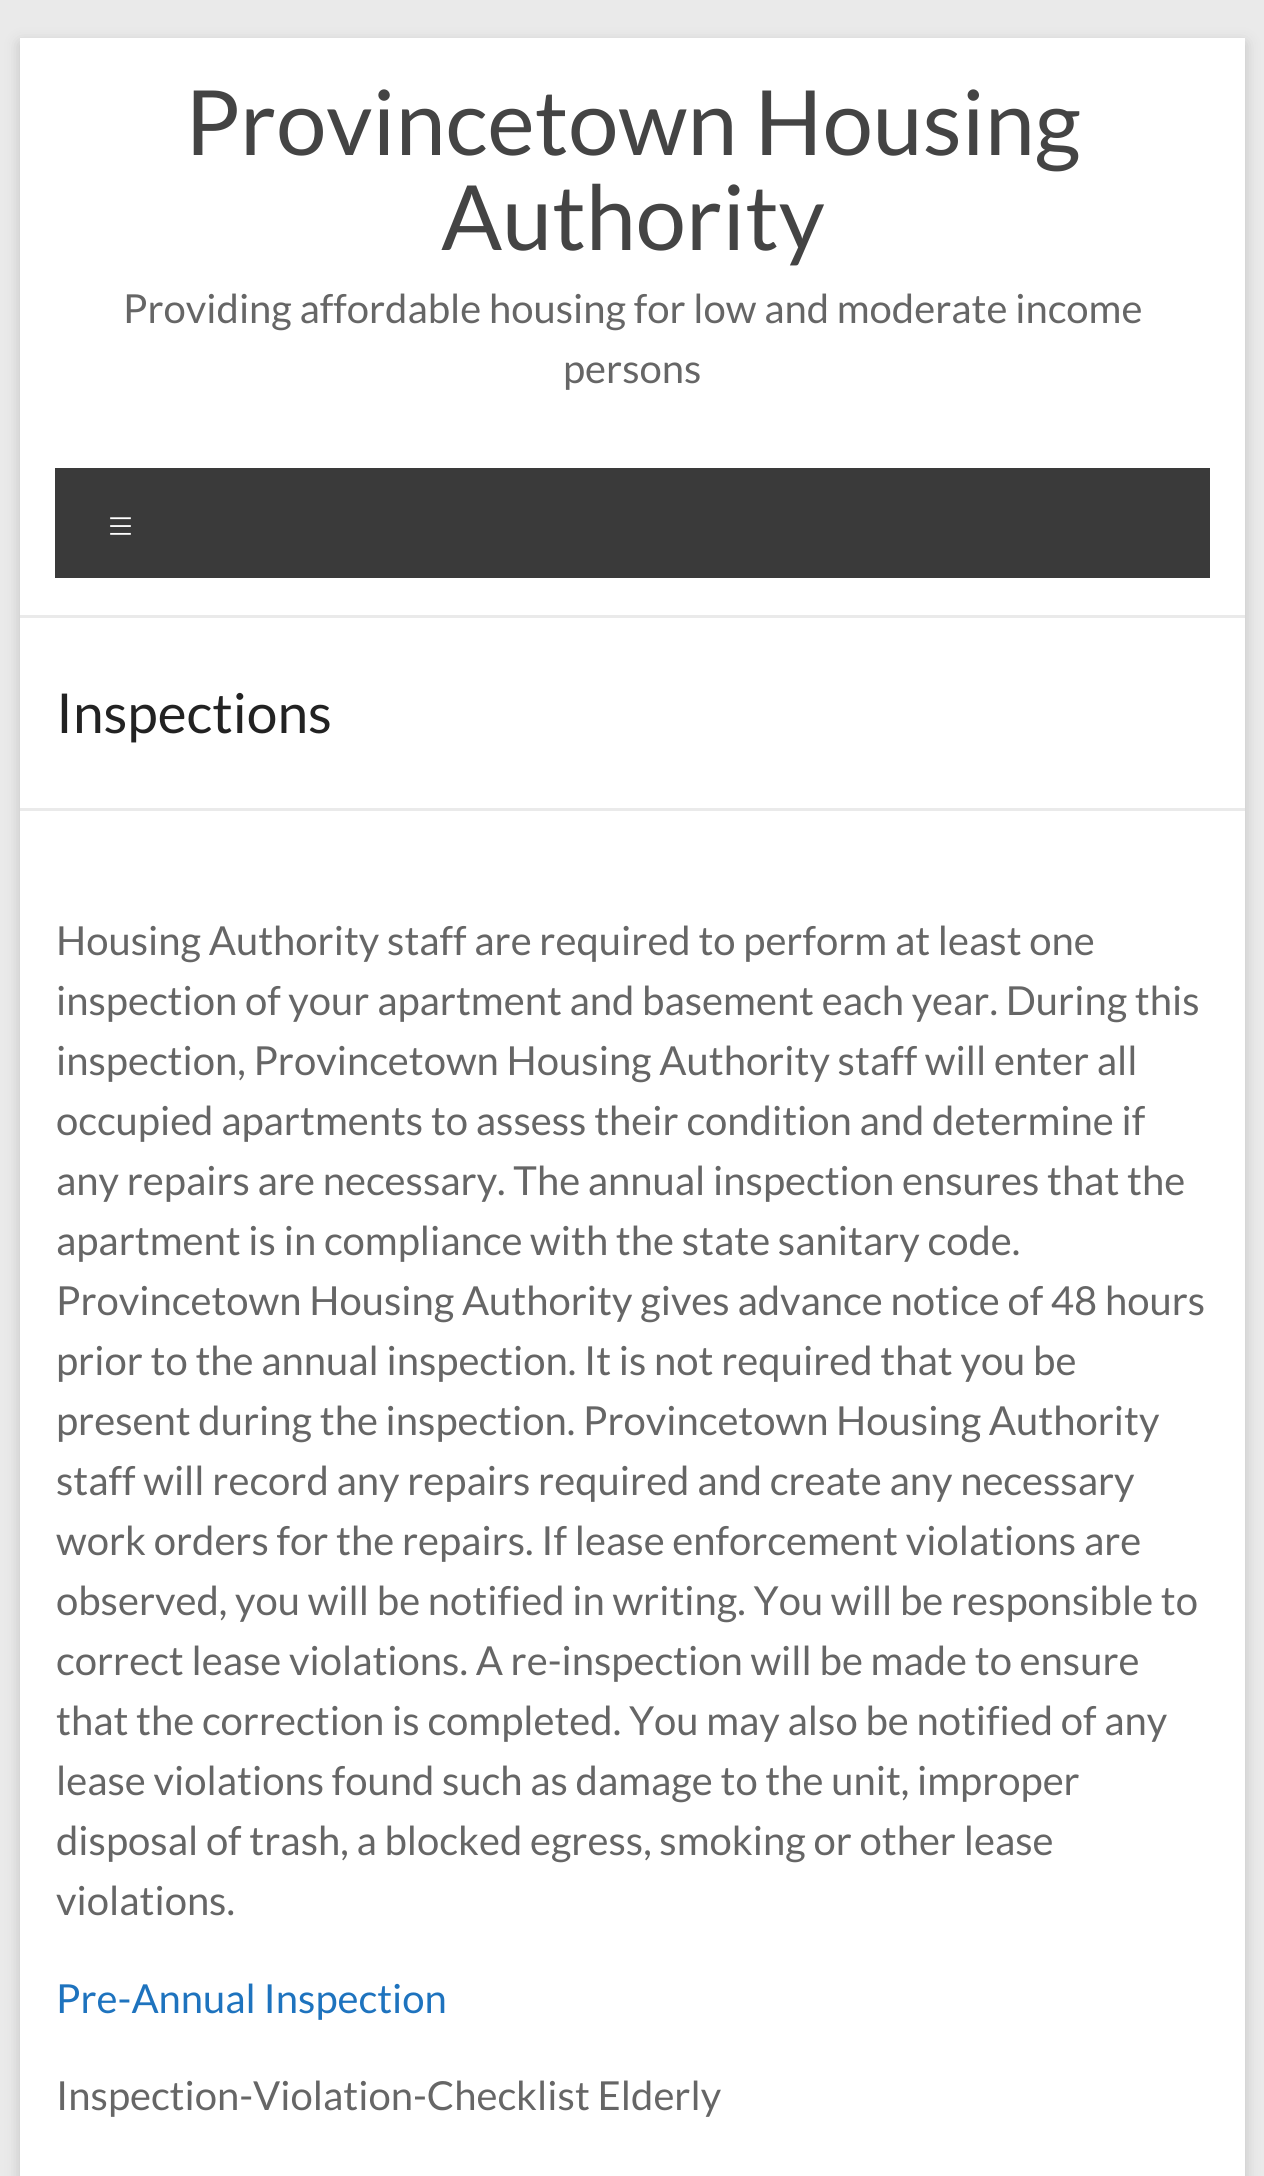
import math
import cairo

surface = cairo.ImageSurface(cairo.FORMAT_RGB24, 1264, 2176)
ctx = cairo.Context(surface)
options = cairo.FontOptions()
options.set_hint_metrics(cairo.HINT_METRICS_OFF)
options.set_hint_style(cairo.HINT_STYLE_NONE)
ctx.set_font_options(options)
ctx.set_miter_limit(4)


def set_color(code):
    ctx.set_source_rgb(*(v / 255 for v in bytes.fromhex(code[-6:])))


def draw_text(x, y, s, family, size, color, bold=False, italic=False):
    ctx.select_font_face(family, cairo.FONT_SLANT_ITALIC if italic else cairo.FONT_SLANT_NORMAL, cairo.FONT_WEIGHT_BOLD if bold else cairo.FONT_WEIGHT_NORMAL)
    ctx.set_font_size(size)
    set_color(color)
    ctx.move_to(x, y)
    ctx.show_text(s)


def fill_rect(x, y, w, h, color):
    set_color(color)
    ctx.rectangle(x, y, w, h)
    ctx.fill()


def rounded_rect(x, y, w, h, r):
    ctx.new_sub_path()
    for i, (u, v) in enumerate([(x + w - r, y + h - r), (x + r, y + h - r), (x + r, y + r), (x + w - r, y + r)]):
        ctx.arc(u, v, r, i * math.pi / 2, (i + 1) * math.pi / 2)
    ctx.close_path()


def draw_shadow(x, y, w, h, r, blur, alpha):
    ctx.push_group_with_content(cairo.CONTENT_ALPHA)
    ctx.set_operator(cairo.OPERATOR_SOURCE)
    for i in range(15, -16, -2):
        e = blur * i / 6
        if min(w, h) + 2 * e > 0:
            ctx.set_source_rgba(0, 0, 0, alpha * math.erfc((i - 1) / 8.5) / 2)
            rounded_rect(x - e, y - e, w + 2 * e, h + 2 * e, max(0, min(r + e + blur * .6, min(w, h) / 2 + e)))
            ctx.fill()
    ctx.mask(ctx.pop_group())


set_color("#eaeaea")
ctx.paint()
set_color("#646464")
draw_shadow(20, 43, 1225, 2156, 0, 7.5, 0.3)
fill_rect(20, 38, 1225, 2138, "#ffffff")
fill_rect(20, 615, 1225, 3, "#eaeaea")
draw_text(185, 155, "Provincetown Housing", "Lato", 90, "#444444")
draw_text(441, 250, "Authority", "Lato", 90, "#444444")
draw_text(123, 323, "Providing affordable housing for low and moderate income", "Lato", 40, "#666666")
draw_text(563, 383, "persons", "Lato", 40, "#666666")
fill_rect(55, 468, 1155, 110, "#3a3a3a")
draw_text(106, 543, "≡", "Lato Light", 50, "#ffffff")
fill_rect(20, 808, 1225, 3, "#eaeaea")
draw_text(56, 733, "Inspections", "Lato", 55, "#222222")
draw_text(56, 955, "Housing Authority staff are required to perform at least one", "Lato", 40, "#666666")
draw_text(56, 1015, "inspection of your apartment and basement each year. During this", "Lato", 40, "#666666")
draw_text(56, 1075, "inspection, Provincetown Housing Authority staff will enter all", "Lato", 40, "#666666")
draw_text(56, 1135, "occupied apartments to assess their condition and determine if", "Lato", 40, "#666666")
draw_text(56, 1195, "any repairs are necessary. The annual inspection ensures that the", "Lato", 40, "#666666")
draw_text(56, 1255, "apartment is in compliance with the state sanitary code.", "Lato", 40, "#666666")
draw_text(56, 1315, "Provincetown Housing Authority gives advance notice of 48 hours", "Lato", 40, "#666666")
draw_text(56, 1375, "prior to the annual inspection. It is not required that you be", "Lato", 40, "#666666")
draw_text(56, 1435, "present during the inspection. Provincetown Housing Authority", "Lato", 40, "#666666")
draw_text(56, 1495, "staff will record any repairs required and create any necessary", "Lato", 40, "#666666")
draw_text(56, 1555, "work orders for the repairs. If lease enforcement violations are", "Lato", 40, "#666666")
draw_text(56, 1615, "observed, you will be notified in writing. You will be responsible to", "Lato", 40, "#666666")
draw_text(56, 1675, "correct lease violations. A re-inspection will be made to ensure", "Lato", 40, "#666666")
draw_text(56, 1735, "that the correction is completed. You may also be notified of any", "Lato", 40, "#666666")
draw_text(56, 1795, "lease violations found such as damage to the unit, improper", "Lato", 40, "#666666")
draw_text(56, 1855, "disposal of trash, a blocked egress, smoking or other lease", "Lato", 40, "#666666")
draw_text(56, 1915, "violations.", "Lato", 40, "#666666")
draw_text(56, 2013, "Pre-Annual Inspection", "Lato", 40, "#1e73be")
draw_text(56, 2110, "Inspection-Violation-Checklist Elderly", "Lato", 40, "#666666")
surface.write_to_png("output.png")
